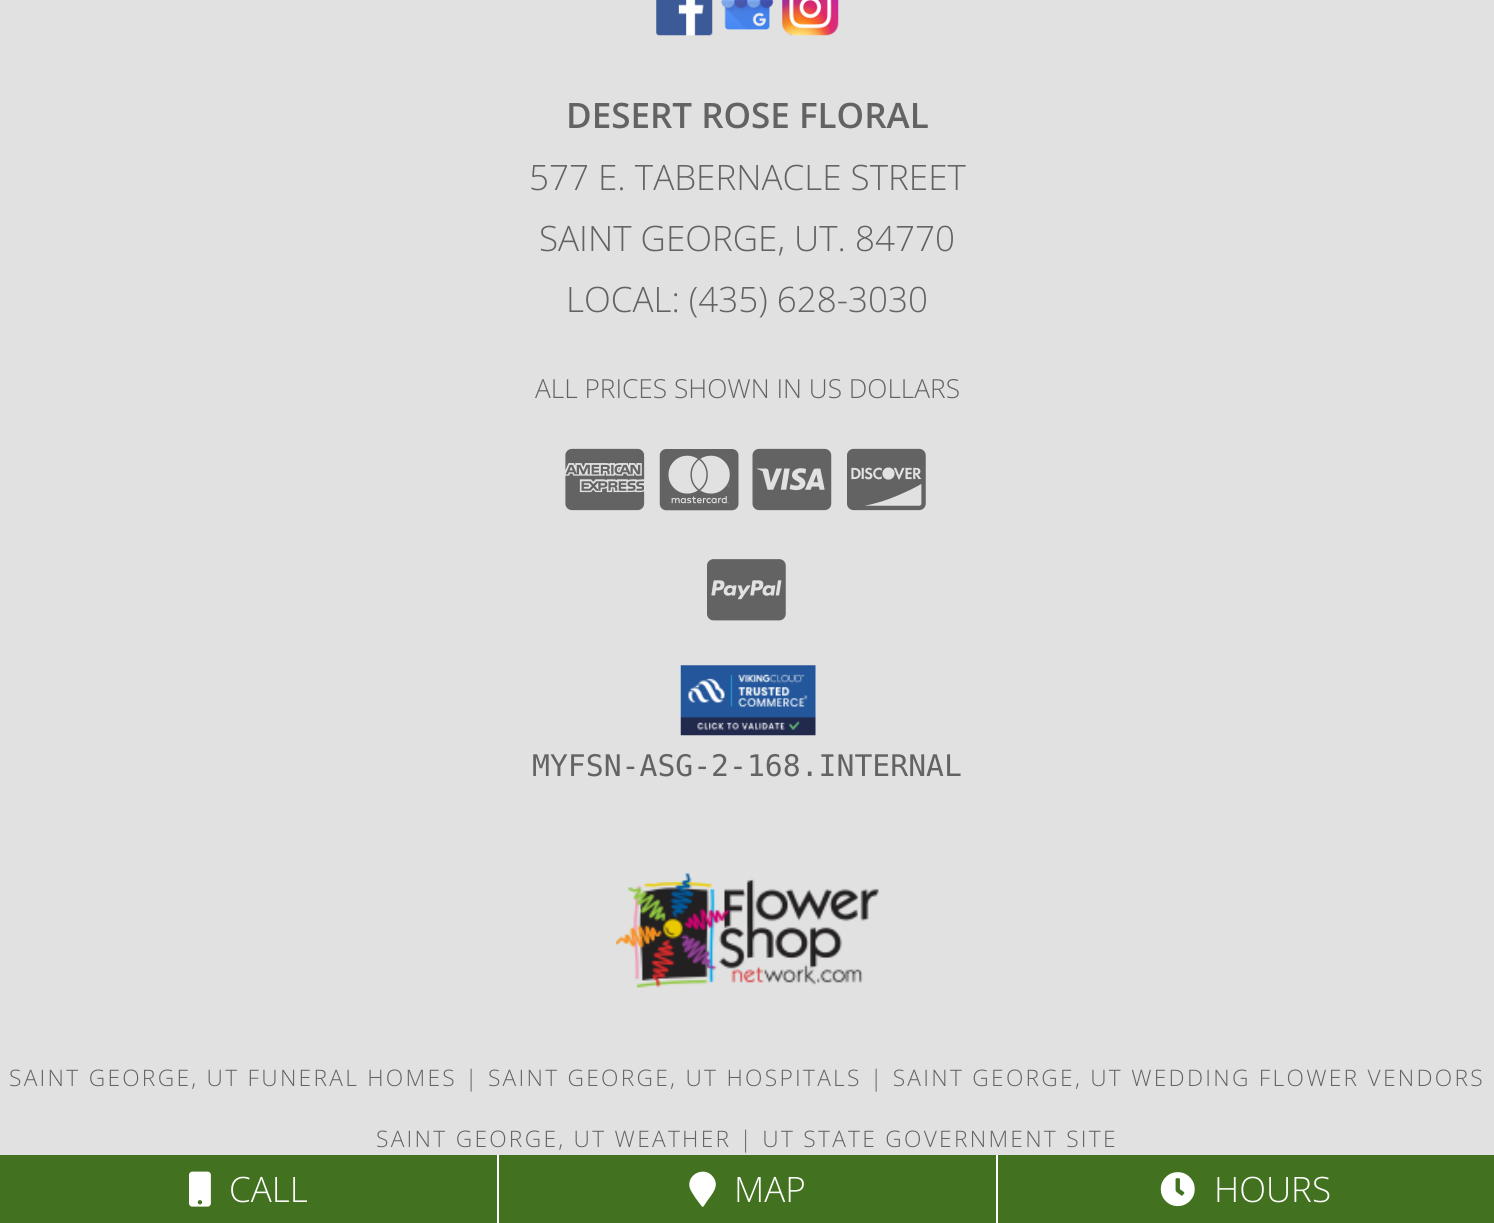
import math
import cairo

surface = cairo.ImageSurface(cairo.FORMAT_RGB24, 1494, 1223)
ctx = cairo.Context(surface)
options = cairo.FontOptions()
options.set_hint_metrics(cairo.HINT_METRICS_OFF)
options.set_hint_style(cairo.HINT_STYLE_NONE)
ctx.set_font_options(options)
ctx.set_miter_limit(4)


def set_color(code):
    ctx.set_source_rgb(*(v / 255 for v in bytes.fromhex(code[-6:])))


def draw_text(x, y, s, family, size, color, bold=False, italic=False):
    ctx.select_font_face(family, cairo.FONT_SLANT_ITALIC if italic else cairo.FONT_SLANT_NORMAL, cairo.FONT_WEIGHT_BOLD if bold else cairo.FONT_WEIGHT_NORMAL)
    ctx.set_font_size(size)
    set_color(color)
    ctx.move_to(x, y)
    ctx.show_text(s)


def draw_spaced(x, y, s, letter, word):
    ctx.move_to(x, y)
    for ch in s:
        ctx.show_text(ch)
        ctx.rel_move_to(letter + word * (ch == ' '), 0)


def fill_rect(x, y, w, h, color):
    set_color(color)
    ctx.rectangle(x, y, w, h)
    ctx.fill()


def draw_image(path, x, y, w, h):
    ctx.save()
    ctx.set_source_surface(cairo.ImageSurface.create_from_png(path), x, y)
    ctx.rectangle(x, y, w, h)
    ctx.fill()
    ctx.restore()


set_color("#e1e1e1")
ctx.paint()
draw_image("assets/img1.png", 656, 0, 57, 36)
draw_image("assets/img2.png", 721, 0, 53, 30)
draw_image("assets/img3.png", 782, 0, 57, 36)
draw_text(566, 128, "DESERT ROSE FLORAL", "Open Sans SemiBold", 35, "#636363")
draw_text(529, 190, "577 E. TABERNACLE STREET", "Open Sans Light", 35, "#636363")
draw_text(539, 251, "SAINT GEORGE, UT. 84770", "Open Sans Light", 35, "#636363")
draw_text(566, 312, "LOCAL: (435) 628-3030", "Open Sans Light", 35, "#636363")
draw_text(535, 398, "ALL PRICES SHOWN IN US DOLLARS", "Open Sans Light", 26.25, "#636363")
draw_image("assets/img4.png", 565, 448, 80, 63)
draw_image("assets/img5.png", 659, 449, 80, 62)
draw_image("assets/img6.png", 752, 448, 80, 63)
draw_image("assets/img7.png", 847, 448, 79, 63)
draw_image("assets/img8.png", 707, 559, 79, 62)
draw_image("assets/img9.png", 680, 665, 136, 71)
draw_text(532, 776, "MYFSN-ASG-2-168.INTERNAL", "DejaVu Sans Mono", 29.75, "#636363")
draw_image("assets/img10.png", 616, 873, 263, 115)
ctx.select_font_face("Open Sans Light")
ctx.set_font_size(22.75)
draw_spaced(9, 1086, "SAINT GEORGE, UT FUNERAL HOMES | SAINT GEORGE, UT HOSPITALS | SAINT GEORGE, UT WEDDING FLOWER VENDORS", 2.27, 0)
draw_spaced(376, 1147, "SAINT GEORGE, UT WEATHER | UT STATE GOVERNMENT SITE", 2.27, 0)
fill_rect(0, 1155, 497, 68, "#42721f")
draw_image("assets/img11.png", 189, 1171, 22, 36)
draw_text(229, 1202, "CALL", "Open Sans Light", 35, "#ffffff")
fill_rect(499, 1155, 497, 68, "#42721f")
fill_rect(497, 1155, 2, 68, "#ffffff")
ctx.new_path()
ctx.move_to(701.5, 1206)
ctx.line_to(695.5, 1198)
ctx.curve_to(693.5, 1194.5, 690.5, 1191, 689.5, 1187)
ctx.curve_to(687, 1173.5, 705.5, 1165.5, 713.5, 1177.5)
ctx.curve_to(719.5, 1186, 712.5, 1193.5, 707.5, 1200.5)
ctx.line_to(703.5, 1206.5)
ctx.curve_to(702.5, 1207, 701.5, 1206.5, 701.5, 1206)
ctx.close_path()
ctx.fill()
draw_text(734, 1202, "MAP", "Open Sans Light", 35, "#ffffff")
fill_rect(998, 1155, 496, 68, "#42721f")
fill_rect(996, 1155, 2, 68, "#ffffff")
draw_image("assets/img12.png", 1160, 1172, 35, 35)
draw_text(1214, 1202, "HOURS", "Open Sans Light", 35, "#ffffff")
surface.write_to_png("output.png")
